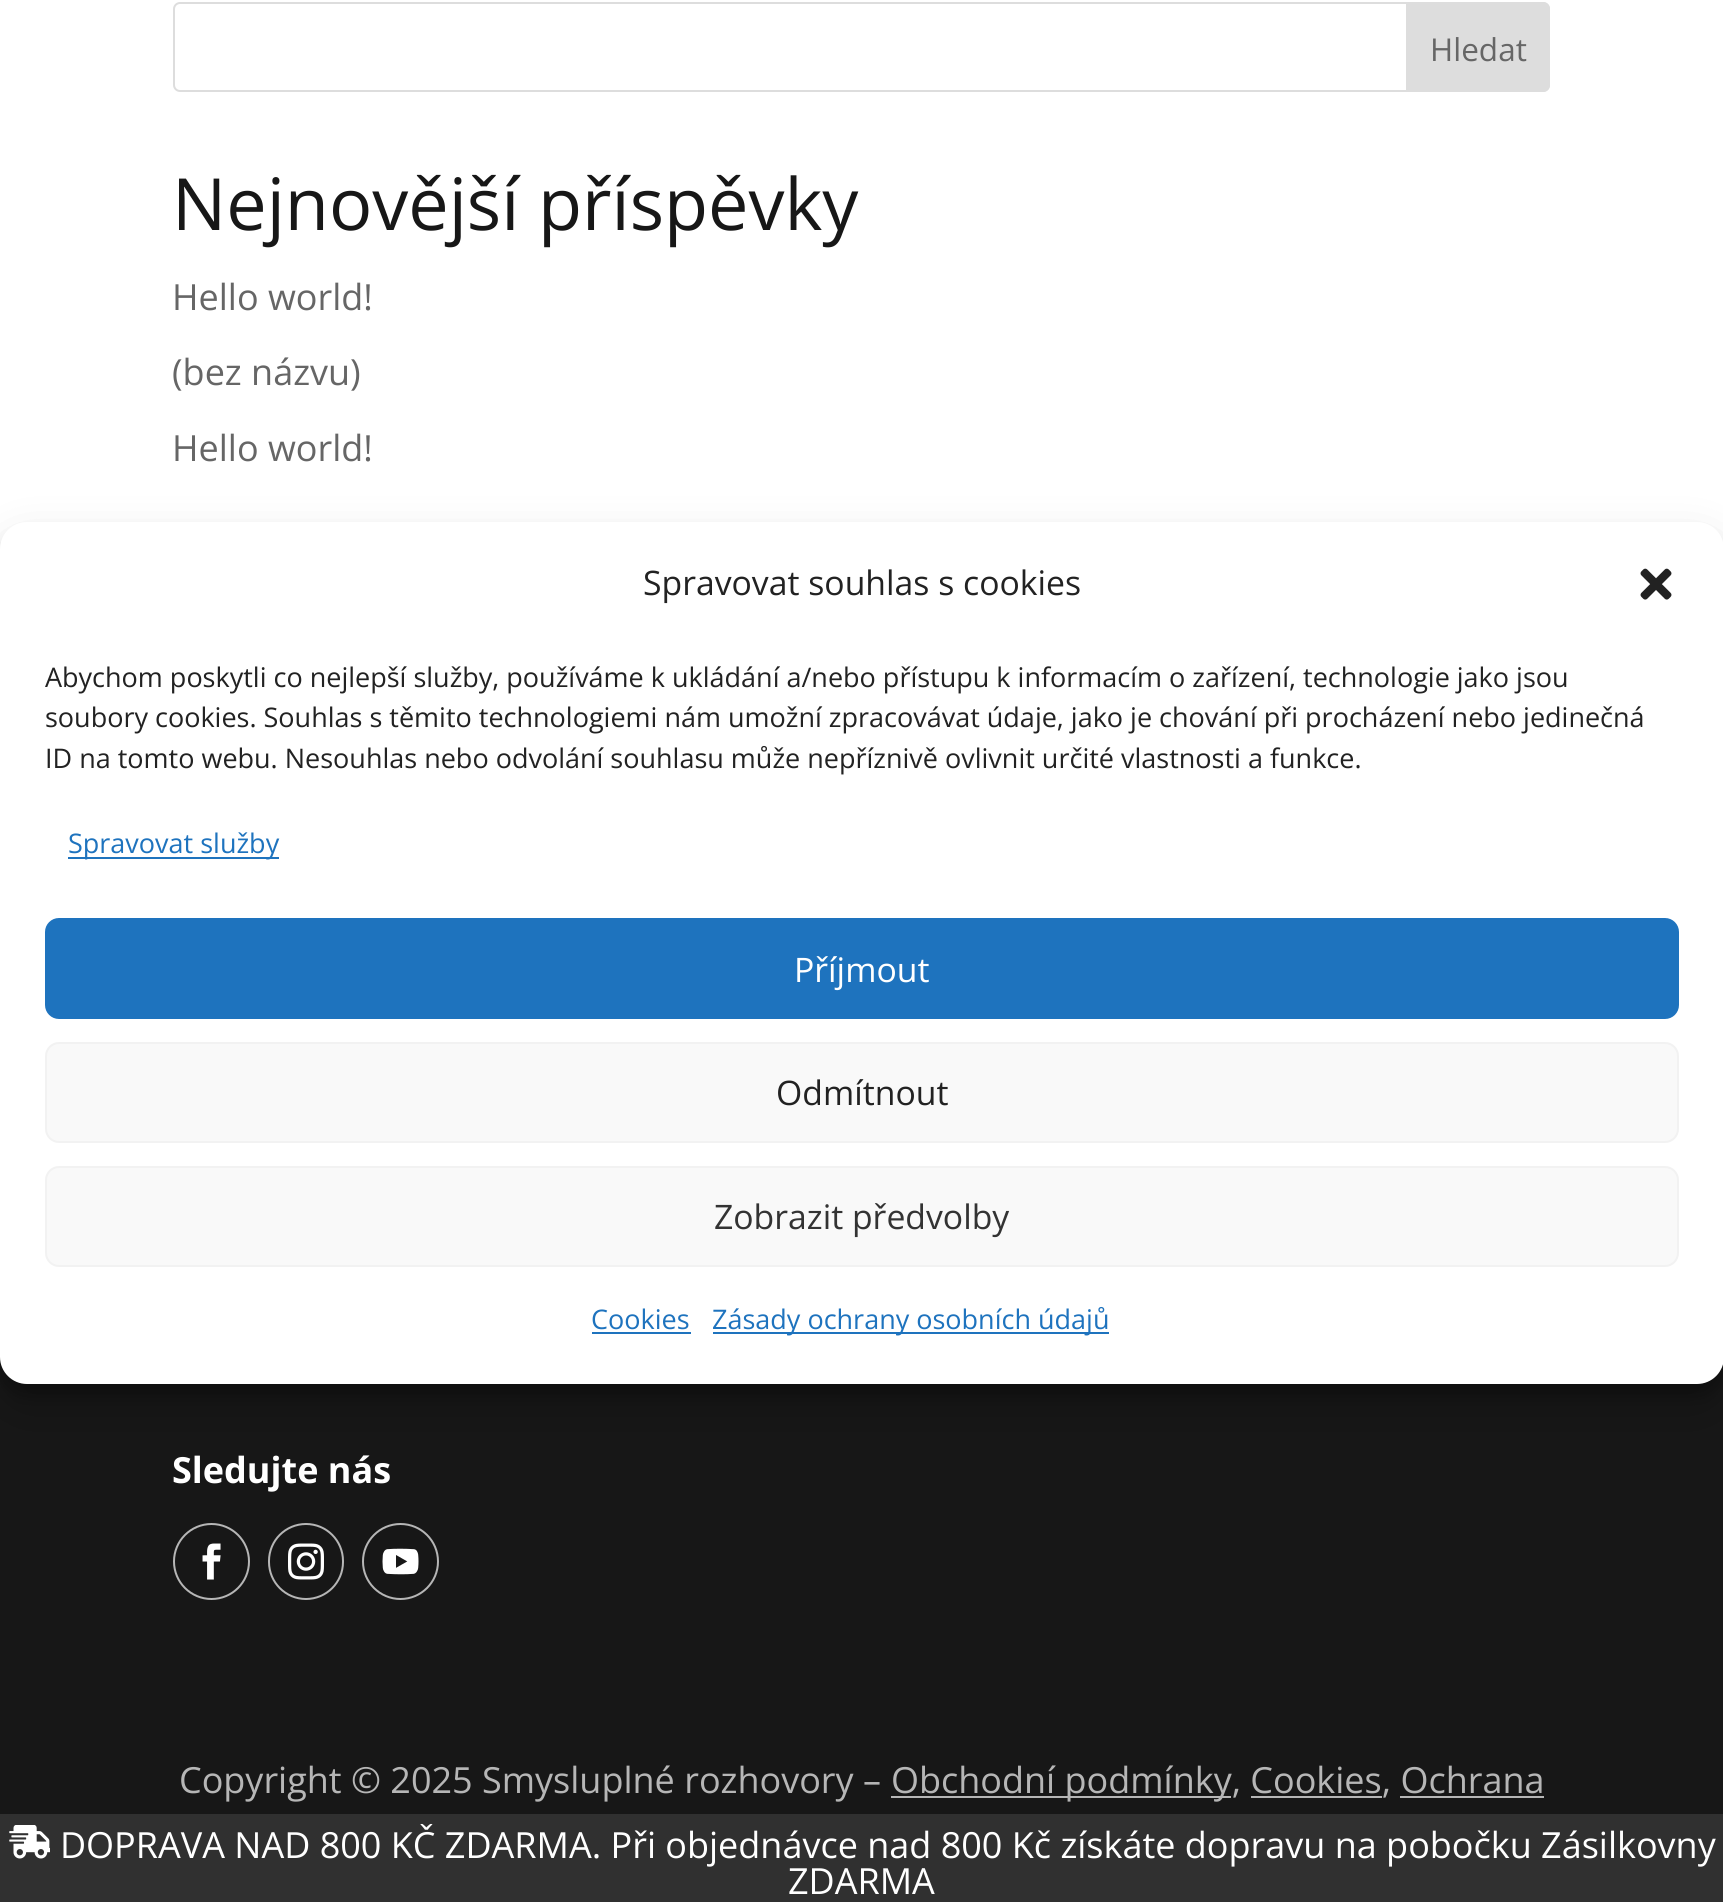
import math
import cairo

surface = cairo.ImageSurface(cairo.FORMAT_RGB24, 1723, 1902)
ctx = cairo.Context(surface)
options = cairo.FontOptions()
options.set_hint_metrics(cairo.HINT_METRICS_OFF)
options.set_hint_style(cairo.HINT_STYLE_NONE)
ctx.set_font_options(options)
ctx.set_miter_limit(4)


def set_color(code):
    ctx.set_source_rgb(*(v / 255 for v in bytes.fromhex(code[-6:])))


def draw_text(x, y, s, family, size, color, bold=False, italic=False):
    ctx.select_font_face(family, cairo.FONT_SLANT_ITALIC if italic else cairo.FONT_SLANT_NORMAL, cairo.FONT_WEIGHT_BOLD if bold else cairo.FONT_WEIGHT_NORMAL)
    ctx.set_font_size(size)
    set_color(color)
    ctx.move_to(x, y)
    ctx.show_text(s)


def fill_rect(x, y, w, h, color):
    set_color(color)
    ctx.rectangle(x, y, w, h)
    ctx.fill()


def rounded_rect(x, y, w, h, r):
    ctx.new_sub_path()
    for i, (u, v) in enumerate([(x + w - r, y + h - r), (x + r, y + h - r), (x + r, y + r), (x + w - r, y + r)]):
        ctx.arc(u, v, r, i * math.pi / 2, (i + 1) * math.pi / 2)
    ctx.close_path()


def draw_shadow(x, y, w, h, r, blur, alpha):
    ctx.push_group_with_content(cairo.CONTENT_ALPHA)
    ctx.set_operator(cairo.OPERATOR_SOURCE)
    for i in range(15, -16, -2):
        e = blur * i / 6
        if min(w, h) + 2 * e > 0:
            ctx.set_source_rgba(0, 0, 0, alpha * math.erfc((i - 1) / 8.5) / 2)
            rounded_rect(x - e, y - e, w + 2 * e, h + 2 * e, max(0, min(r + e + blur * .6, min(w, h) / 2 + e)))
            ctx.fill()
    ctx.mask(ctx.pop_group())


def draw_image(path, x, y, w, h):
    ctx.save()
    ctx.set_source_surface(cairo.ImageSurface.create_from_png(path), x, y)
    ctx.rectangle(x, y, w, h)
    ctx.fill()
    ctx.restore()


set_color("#ffffff")
ctx.paint()
rounded_rect(174, 3, 1375, 88, 6)
set_color("#dddddd")
ctx.stroke()
ctx.new_path()
ctx.move_to(1407, 3)
ctx.line_to(1543, 3)
ctx.curve_to(1546.5, 3, 1549, 5.5, 1549, 9)
ctx.line_to(1549, 85)
ctx.curve_to(1549, 88.5, 1546.5, 91, 1543, 91)
ctx.line_to(1407, 91)
ctx.close_path()
ctx.fill_preserve()
ctx.stroke()
draw_text(1430, 61, "Hledat", "Open Sans", 31.5, "#666666")
draw_text(172, 230, "Nejnovější příspěvky", "Open Sans", 72, "#171717")
draw_text(172, 310, "Hello world!", "Open Sans", 36, "#666666")
draw_text(172, 385, "(bez názvu)", "Open Sans", 36, "#666666")
draw_text(172, 461, "Hello world!", "Open Sans", 36, "#666666")
fill_rect(0, 1357, 1723, 457, "#171717")
draw_text(172, 1483, "Sledujte nás", "Open Sans", 36, "#ffffff", bold=True)
ctx.new_path()
ctx.arc(211.5, 1561.5, 37.5, 0, 2 * math.pi)
set_color("#b6b6b6")
ctx.stroke()
draw_image("assets/img1.png", 202, 1543, 19, 37)
rounded_rect(269, 1524, 74, 75, 37)
ctx.stroke()
draw_image("assets/img2.png", 288, 1543, 36, 37)
ctx.arc(400.5, 1561.5, 37.5, 0, 2 * math.pi)
ctx.stroke()
draw_image("assets/img3.png", 382, 1548, 37, 27)
draw_text(179, 1793, "Copyright © 2025 Smysluplné rozhovory –", "Open Sans", 36, "#b6b6b6")
fill_rect(891, 1796, 340, 2, "#b6b6b6")
draw_text(891, 1793, "Obchodní podmínky, Cookies, Ochrana", "Open Sans", 36, "#b6b6b6")
fill_rect(1251, 1796, 131, 2, "#b6b6b6")
fill_rect(1400, 1796, 144, 2, "#b6b6b6")
set_color("#000000")
draw_shadow(0, 536, 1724, 861, 27, 7, 0.23)
draw_shadow(0, 545, 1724, 861, 27, 22.5, 0.19)
set_color("#ffffff")
rounded_rect(0, 522, 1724, 862, 27)
ctx.fill()
draw_text(643, 595, "Spravovat souhlas s cookies", "Open Sans", 33.75, "#222222")
draw_image("assets/img4.png", 1640, 568, 32, 32)
draw_text(45, 687, "Abychom poskytli co nejlepší služby, používáme k ukládání a/nebo přístupu k informacím o zařízení, technologie jako jsou", "Open Sans", 27, "#222222")
draw_text(45, 727, "soubory cookies. Souhlas s těmito technologiemi nám umožní zpracovávat údaje, jako je chování při procházení nebo jedinečná", "Open Sans", 27, "#222222")
draw_text(45, 768, "ID na tomto webu. Nesouhlas nebo odvolání souhlasu může nepříznivě ovlivnit určité vlastnosti a funkce.", "Open Sans", 27, "#222222")
fill_rect(68, 857, 211, 2, "#1e73be")
draw_text(68, 853, "Spravovat služby", "Open Sans", 27, "#1e73be")
rounded_rect(46, 919, 1632, 99, 13)
ctx.fill_preserve()
ctx.stroke()
draw_text(794, 982, "Příjmout", "Open Sans", 33.75, "#ffffff")
set_color("#f9f9f9")
rounded_rect(46, 1043, 1632, 99, 13)
ctx.fill_preserve()
set_color("#f2f2f2")
ctx.stroke()
draw_text(776, 1105, "Odmítnout", "Open Sans", 33.75, "#222222")
set_color("#f9f9f9")
rounded_rect(46, 1167, 1632, 99, 13)
ctx.fill_preserve()
set_color("#f2f2f2")
ctx.stroke()
draw_text(714, 1229, "Zobrazit předvolby", "Open Sans", 33.75, "#333333")
draw_text(591, 1329, "Cookies", "Open Sans", 27, "#1e73be")
fill_rect(592, 1332, 99, 2, "#1e73be")
fill_rect(713, 1332, 396, 2, "#1e73be")
draw_text(712, 1329, "Zásady ochrany osobních údajů", "Open Sans", 27, "#1e73be")
fill_rect(0, 1814, 1723, 88, "#303030")
draw_image("assets/img5.png", 9, 1825, 41, 34)
draw_text(60, 1858, "DOPRAVA NAD 800 KČ ZDARMA. Při objednávce nad 800 Kč získáte dopravu na pobočku Zásilkovny", "Open Sans", 36, "#ffffff")
draw_text(788, 1894, "ZDARMA", "Open Sans", 36, "#ffffff")
surface.write_to_png("output.png")
